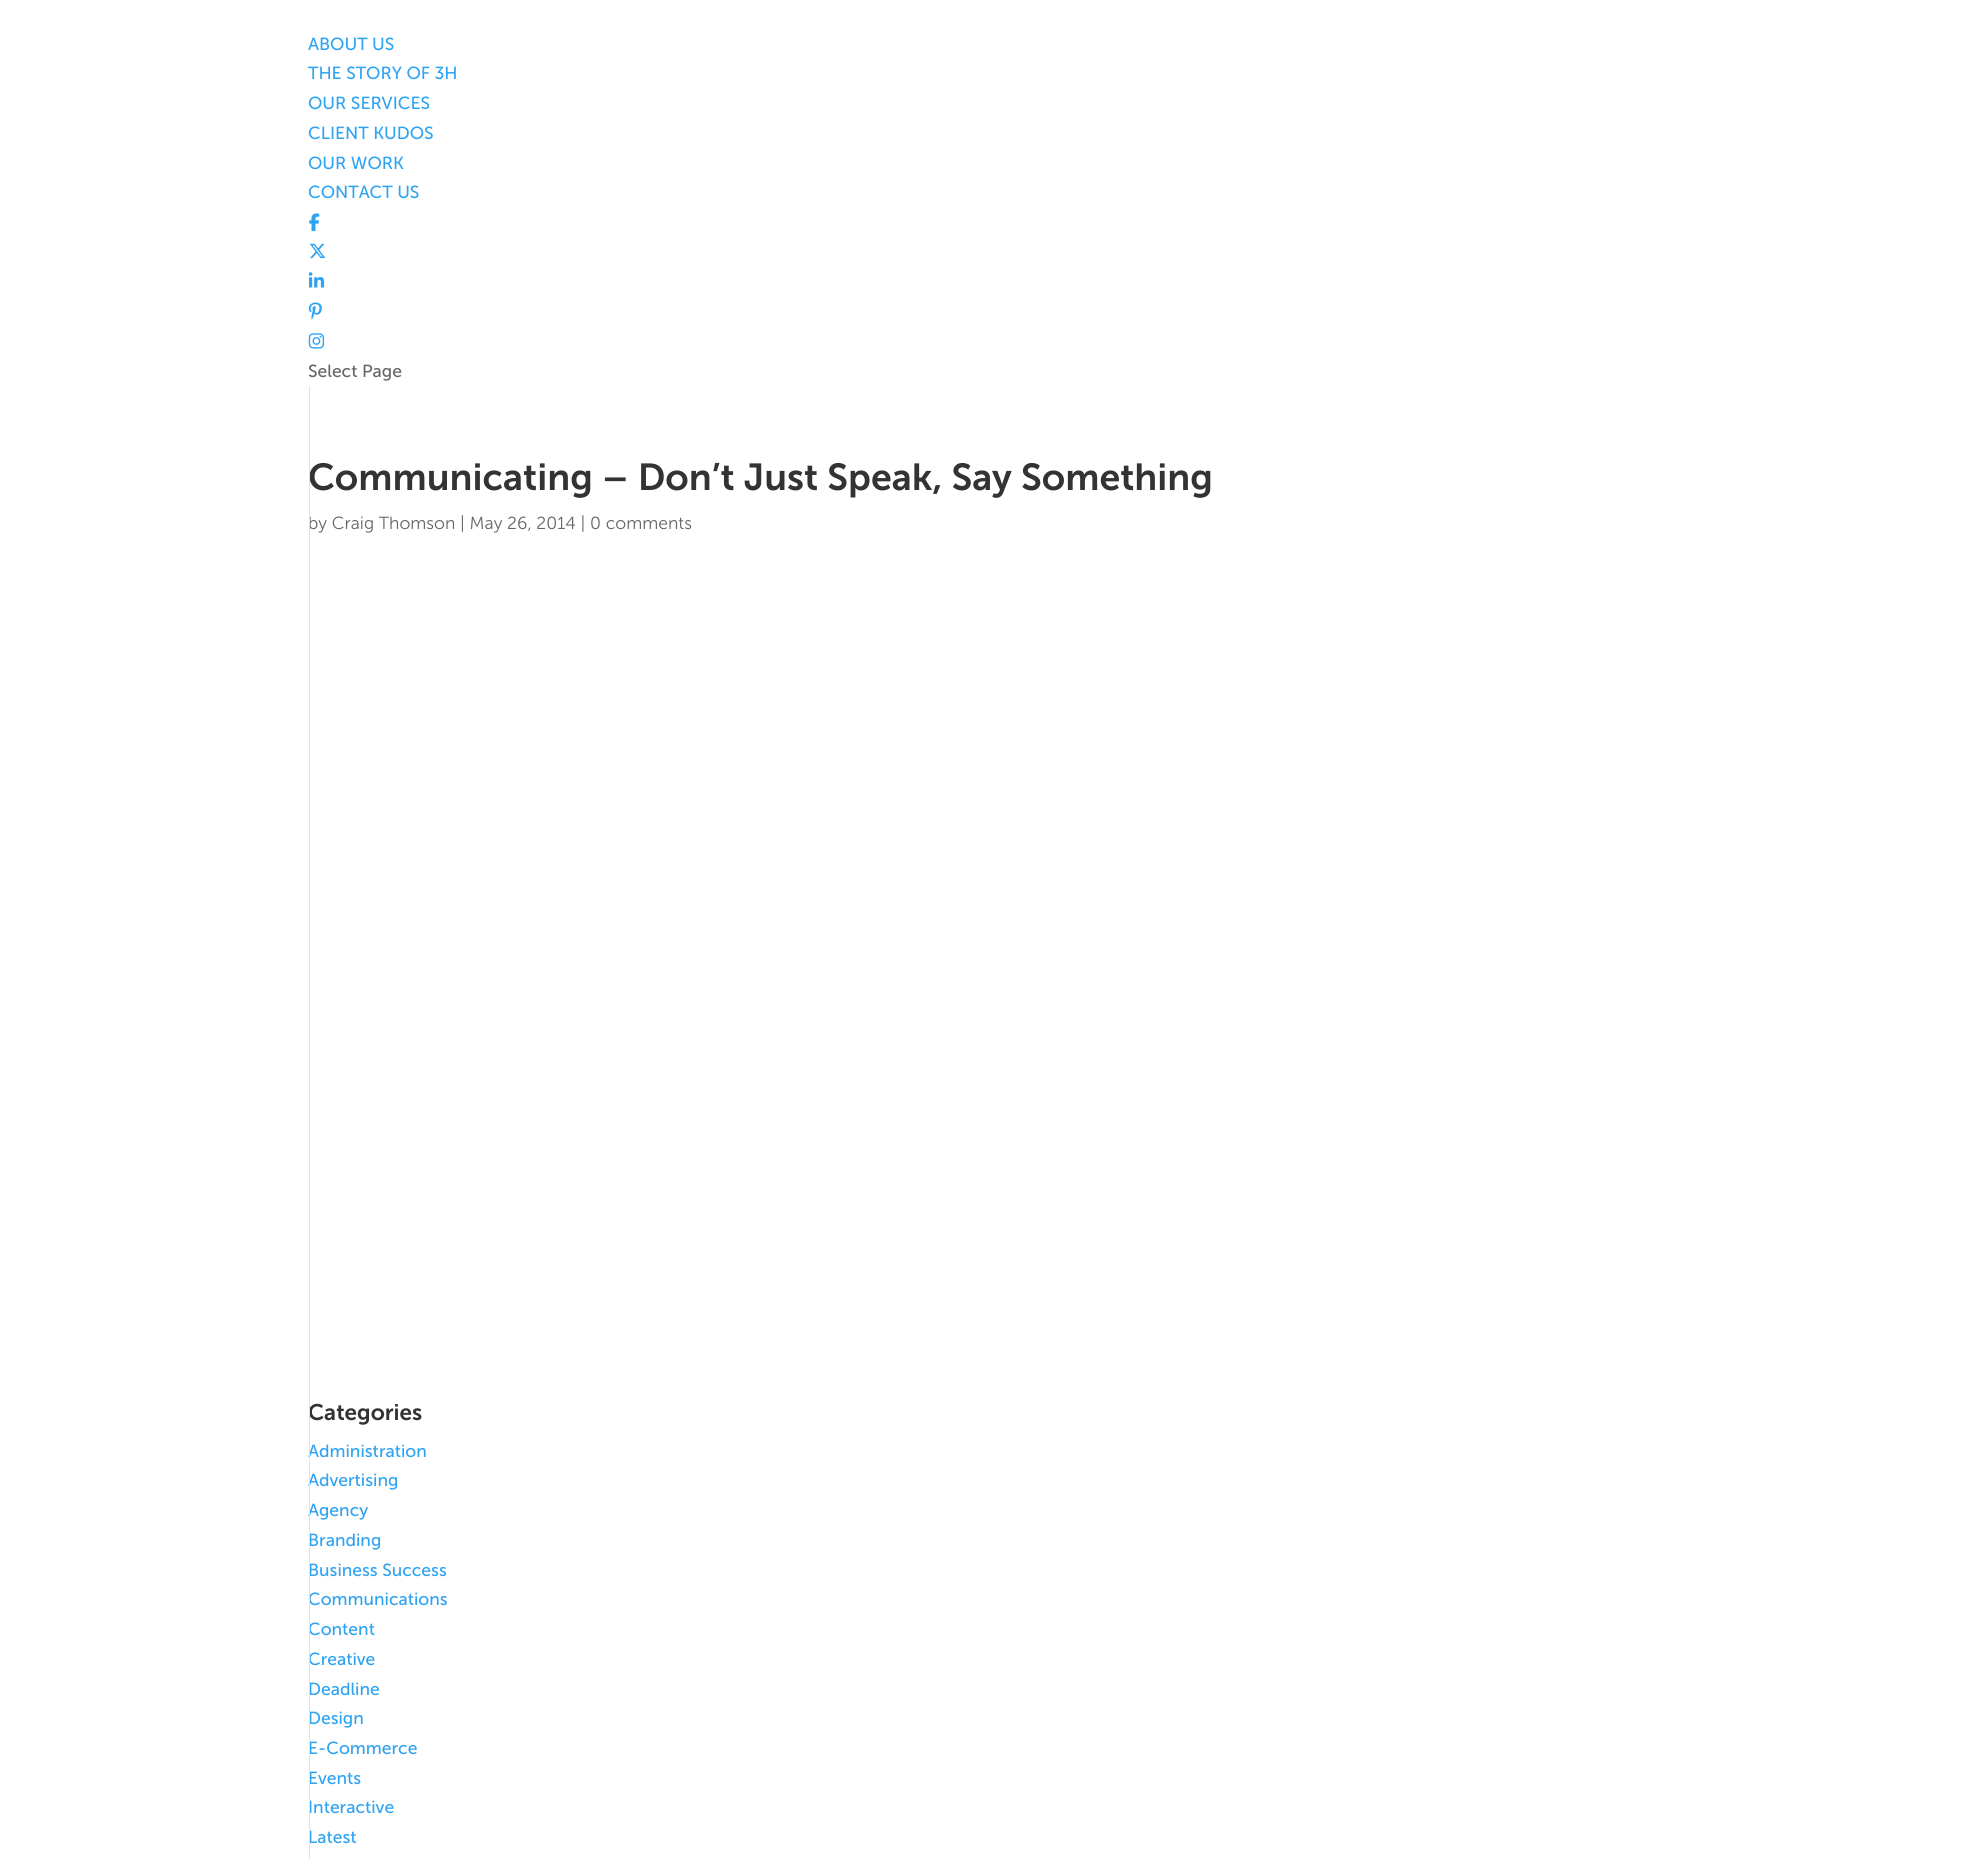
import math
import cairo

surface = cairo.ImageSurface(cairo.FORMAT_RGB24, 1966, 1859)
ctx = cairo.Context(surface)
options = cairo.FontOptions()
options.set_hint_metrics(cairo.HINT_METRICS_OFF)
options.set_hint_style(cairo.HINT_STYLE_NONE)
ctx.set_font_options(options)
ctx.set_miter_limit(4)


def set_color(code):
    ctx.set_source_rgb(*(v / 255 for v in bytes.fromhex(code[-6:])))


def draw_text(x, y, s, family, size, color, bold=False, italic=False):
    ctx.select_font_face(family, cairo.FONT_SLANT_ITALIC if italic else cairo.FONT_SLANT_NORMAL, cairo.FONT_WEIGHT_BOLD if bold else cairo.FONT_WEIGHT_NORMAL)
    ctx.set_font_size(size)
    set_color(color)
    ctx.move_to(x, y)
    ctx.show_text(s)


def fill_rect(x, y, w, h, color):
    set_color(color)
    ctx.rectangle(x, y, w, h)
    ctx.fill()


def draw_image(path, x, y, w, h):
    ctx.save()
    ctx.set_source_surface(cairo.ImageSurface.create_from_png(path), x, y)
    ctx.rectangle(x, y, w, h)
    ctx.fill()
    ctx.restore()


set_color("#ffffff")
ctx.paint()
draw_text(308, 50, "ABOUT US", "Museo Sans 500", 17.5, "#2ea3f2")
draw_text(308, 79, "THE STORY OF 3H", "Museo Sans 500", 17.5, "#2ea3f2")
draw_text(308, 109, "OUR SERVICES", "Museo Sans 500", 17.5, "#2ea3f2")
draw_text(308, 139, "CLIENT KUDOS", "Museo Sans 500", 17.5, "#2ea3f2")
draw_text(308, 169, "OUR WORK", "Museo Sans 500", 17.5, "#2ea3f2")
draw_text(308, 198, "CONTACT US", "Museo Sans 500", 17.5, "#2ea3f2")
draw_image("assets/img1.png", 309, 213, 11, 18)
draw_image("assets/img2.png", 309, 243, 17, 16)
draw_image("assets/img3.png", 308, 272, 17, 16)
draw_image("assets/img4.png", 308, 302, 14, 18)
draw_image("assets/img5.png", 308, 333, 17, 16)
draw_text(308, 377, "Select Page", "Museo Sans 500", 17.5, "#666666")
draw_text(308, 490, "Communicating – Don’t Just Speak, Say Something", "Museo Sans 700 SemiBold", 37.5, "#333333")
draw_text(308, 529, "by Craig Thomson | May 26, 2014 | 0 comments", "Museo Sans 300 Light", 17.5, "#666666")
draw_text(308, 1420, "Categories", "Museo Sans 700 SemiBold", 22.5, "#333333")
draw_text(308, 1457, "Administration", "Museo Sans 500", 17.5, "#2ea3f2")
draw_text(308, 1486, "Advertising", "Museo Sans 500", 17.5, "#2ea3f2")
draw_text(308, 1516, "Agency", "Museo Sans 500", 17.5, "#2ea3f2")
draw_text(308, 1546, "Branding", "Museo Sans 500", 17.5, "#2ea3f2")
draw_text(308, 1576, "Business Success", "Museo Sans 500", 17.5, "#2ea3f2")
draw_text(308, 1605, "Communications", "Museo Sans 500", 17.5, "#2ea3f2")
draw_text(308, 1635, "Content", "Museo Sans 500", 17.5, "#2ea3f2")
draw_text(308, 1665, "Creative", "Museo Sans 500", 17.5, "#2ea3f2")
draw_text(308, 1695, "Deadline", "Museo Sans 500", 17.5, "#2ea3f2")
draw_text(308, 1724, "Design", "Museo Sans 500", 17.5, "#2ea3f2")
draw_text(308, 1754, "E-Commerce", "Museo Sans 500", 17.5, "#2ea3f2")
draw_text(308, 1784, "Events", "Museo Sans 500", 17.5, "#2ea3f2")
draw_text(308, 1813, "Interactive", "Museo Sans 500", 17.5, "#2ea3f2")
draw_text(308, 1843, "Latest", "Museo Sans 500", 17.5, "#2ea3f2")
fill_rect(309, 386, 1, 1473, "#e2e2e2")
surface.write_to_png("output.png")
